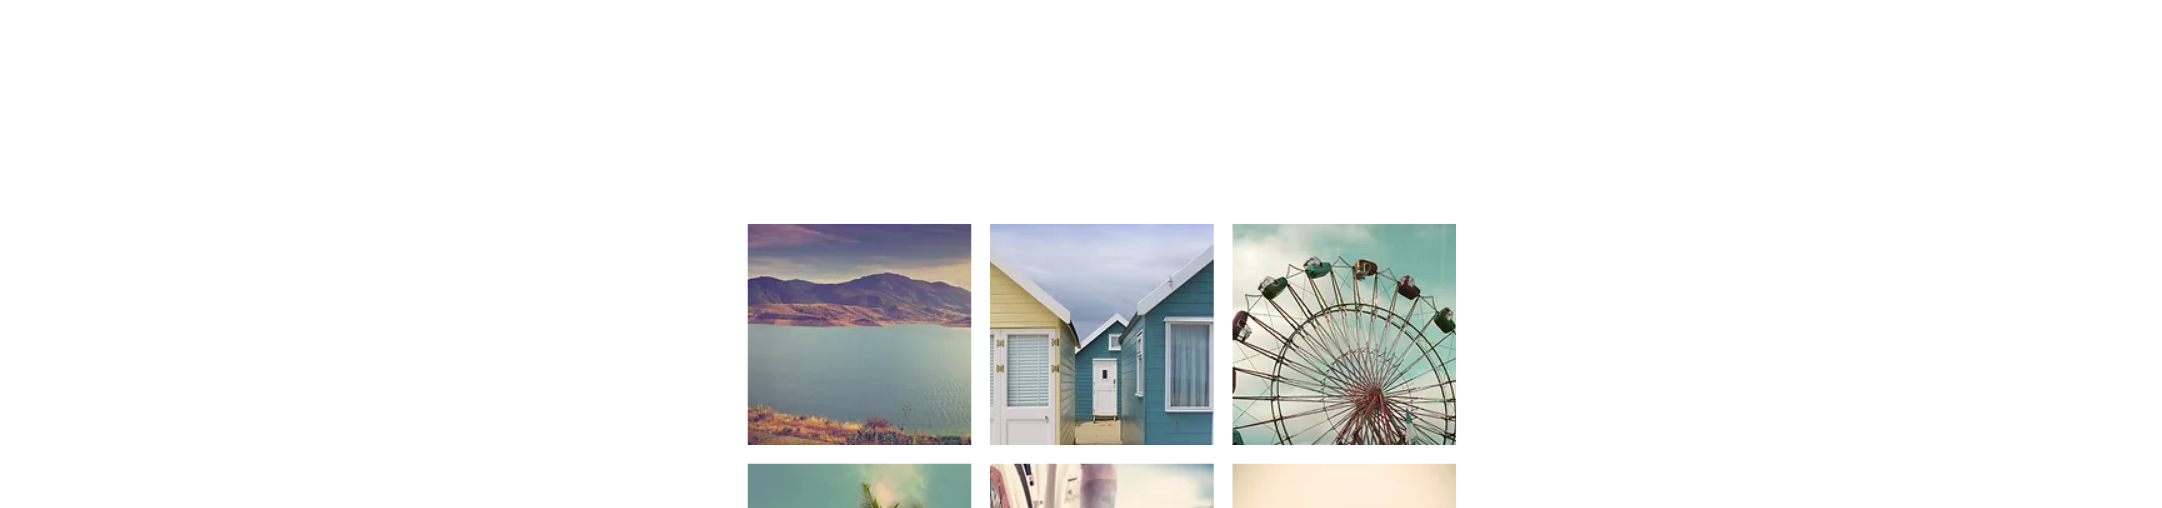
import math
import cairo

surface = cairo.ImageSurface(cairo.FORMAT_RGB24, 2162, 508)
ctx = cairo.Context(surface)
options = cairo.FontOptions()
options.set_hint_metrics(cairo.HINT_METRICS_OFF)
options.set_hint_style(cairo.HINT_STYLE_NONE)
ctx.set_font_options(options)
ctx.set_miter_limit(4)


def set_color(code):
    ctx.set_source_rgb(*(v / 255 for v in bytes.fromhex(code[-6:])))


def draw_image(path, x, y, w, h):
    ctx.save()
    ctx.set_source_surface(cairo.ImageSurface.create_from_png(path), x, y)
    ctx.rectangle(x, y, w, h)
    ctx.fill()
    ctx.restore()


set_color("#ffffff")
ctx.paint()
draw_image("assets/img1.png", 747, 223, 225, 222)
draw_image("assets/img2.png", 990, 223, 224, 222)
draw_image("assets/img3.png", 1232, 223, 225, 222)
draw_image("assets/img4.png", 747, 463, 225, 45)
draw_image("assets/img5.png", 990, 463, 224, 45)
draw_image("assets/img6.png", 1232, 463, 225, 45)
surface.write_to_png("output.png")
